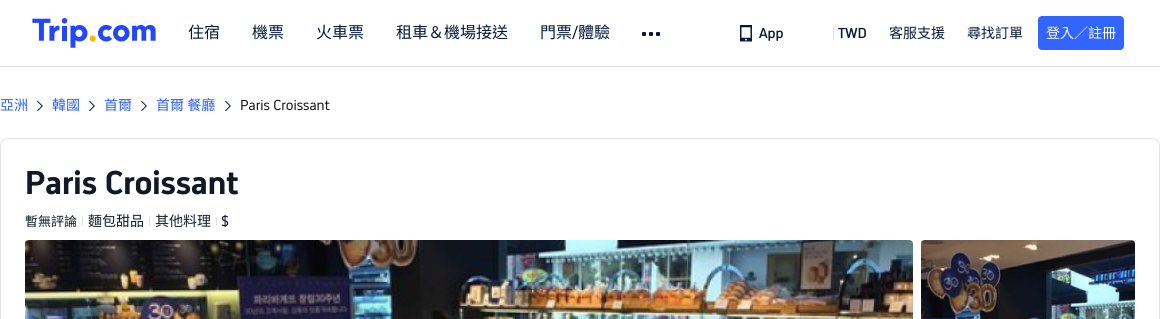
import math
import cairo

surface = cairo.ImageSurface(cairo.FORMAT_RGB24, 1160, 319)
ctx = cairo.Context(surface)
options = cairo.FontOptions()
options.set_hint_metrics(cairo.HINT_METRICS_OFF)
options.set_hint_style(cairo.HINT_STYLE_NONE)
ctx.set_font_options(options)
ctx.set_miter_limit(4)


def set_color(code):
    ctx.set_source_rgb(*(v / 255 for v in bytes.fromhex(code[-6:])))


def draw_text(x, y, s, family, size, color, bold=False, italic=False):
    ctx.select_font_face(family, cairo.FONT_SLANT_ITALIC if italic else cairo.FONT_SLANT_NORMAL, cairo.FONT_WEIGHT_BOLD if bold else cairo.FONT_WEIGHT_NORMAL)
    ctx.set_font_size(size)
    set_color(color)
    ctx.move_to(x, y)
    ctx.show_text(s)


def fill_rect(x, y, w, h, color):
    set_color(color)
    ctx.rectangle(x, y, w, h)
    ctx.fill()


def rounded_rect(x, y, w, h, r):
    ctx.new_sub_path()
    for i, (u, v) in enumerate([(x + w - r, y + h - r), (x + r, y + h - r), (x + r, y + r), (x + w - r, y + r)]):
        ctx.arc(u, v, r, i * math.pi / 2, (i + 1) * math.pi / 2)
    ctx.close_path()


def draw_image(path, x, y, w, h):
    ctx.save()
    ctx.set_source_surface(cairo.ImageSurface.create_from_png(path), x, y)
    ctx.rectangle(x, y, w, h)
    ctx.fill()
    ctx.restore()


set_color("#ffffff")
ctx.paint()
fill_rect(0, 66, 1160, 1, "#dddddd")
draw_image("assets/img1.png", 32, 18, 124, 30)
draw_text(188, 38, "住宿", "Noto Sans CJK TC", 16, "#051a37")
draw_text(252, 38, "機票", "Noto Sans CJK TC", 16, "#051a37")
draw_text(316, 38, "火車票", "Noto Sans CJK TC", 16, "#051a37")
draw_text(396, 38, "租車＆機場接送", "Noto Sans CJK TC", 16, "#051a37")
draw_text(540, 38, "門票", "Noto Sans CJK TC", 16, "#051a37")
draw_text(572, 38, "/", "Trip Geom", 16, "#051a37")
draw_text(578, 38, "體驗", "Noto Sans CJK TC", 16, "#051a37")
rounded_rect(642, 32, 4, 4, 1)
ctx.fill()
rounded_rect(649, 32, 4, 4, 1)
ctx.fill()
rounded_rect(656, 32, 4, 4, 1)
ctx.fill()
draw_image("assets/img2.png", 740, 25, 12, 17)
draw_text(759, 38, "App", "Trip Geom Medium", 14, "#051a37")
fill_rect(833, 27, 1, 12, "#dadfe6")
draw_text(838, 38, "TWD", "Trip Geom Medium", 14, "#051a37")
draw_text(889, 38, "客服支援", "Noto Sans CJK TC", 14, "#051a37")
draw_text(967, 38, "尋找訂單", "Noto Sans CJK TC", 14, "#051a37")
set_color("#3264ff")
rounded_rect(1038, 16, 86, 34, 4)
ctx.fill()
draw_text(1046, 38, "登入／註冊", "Noto Sans CJK TC", 14, "#ffffff")
draw_text(0, 110, "亞洲", "Noto Sans CJK TC", 14, "#2c61fe")
draw_image("assets/img3.png", 37, 100, 6, 12)
draw_text(52, 110, "韓國", "Noto Sans CJK TC", 14, "#2c61fe")
draw_image("assets/img3.png", 89, 100, 6, 12)
draw_text(104, 110, "首爾", "Noto Sans CJK TC", 14, "#2c61fe")
draw_image("assets/img3.png", 141, 100, 6, 12)
draw_text(156, 110, "首爾 餐廳", "Noto Sans CJK TC", 14, "#2c61fe")
draw_image("assets/img3.png", 225, 100, 6, 12)
draw_text(240, 110, "Paris Croissant", "Trip Geom", 14, "#151515")
rounded_rect(0.5, 138.5, 1159, 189, 7.5)
set_color("#e1e3e8")
ctx.set_line_width(1)
ctx.stroke()
draw_text(25, 194, "Paris Croissant", "Trip Geom", 32, "#121826", bold=True)
draw_text(25, 226, "暫無評論", "Noto Sans CJK TC", 13, "#121826")
draw_text(81, 225, "|", "Trip Geom", 10, "#d4d7de")
draw_text(88, 226, "麵包甜品", "Noto Sans CJK TC", 14, "#121826")
draw_text(148, 225, "|", "Trip Geom", 10, "#d4d7de")
draw_text(155, 226, "其他料理", "Noto Sans CJK TC", 14, "#121826")
draw_text(215, 225, "|", "Trip Geom", 10, "#d4d7de")
draw_text(221, 226, "$", "Trip Geom", 14, "#121826")
draw_image("assets/img4.png", 25, 240, 888, 79)
draw_image("assets/img5.png", 921, 240, 214, 79)
surface.write_to_png("output.png")
